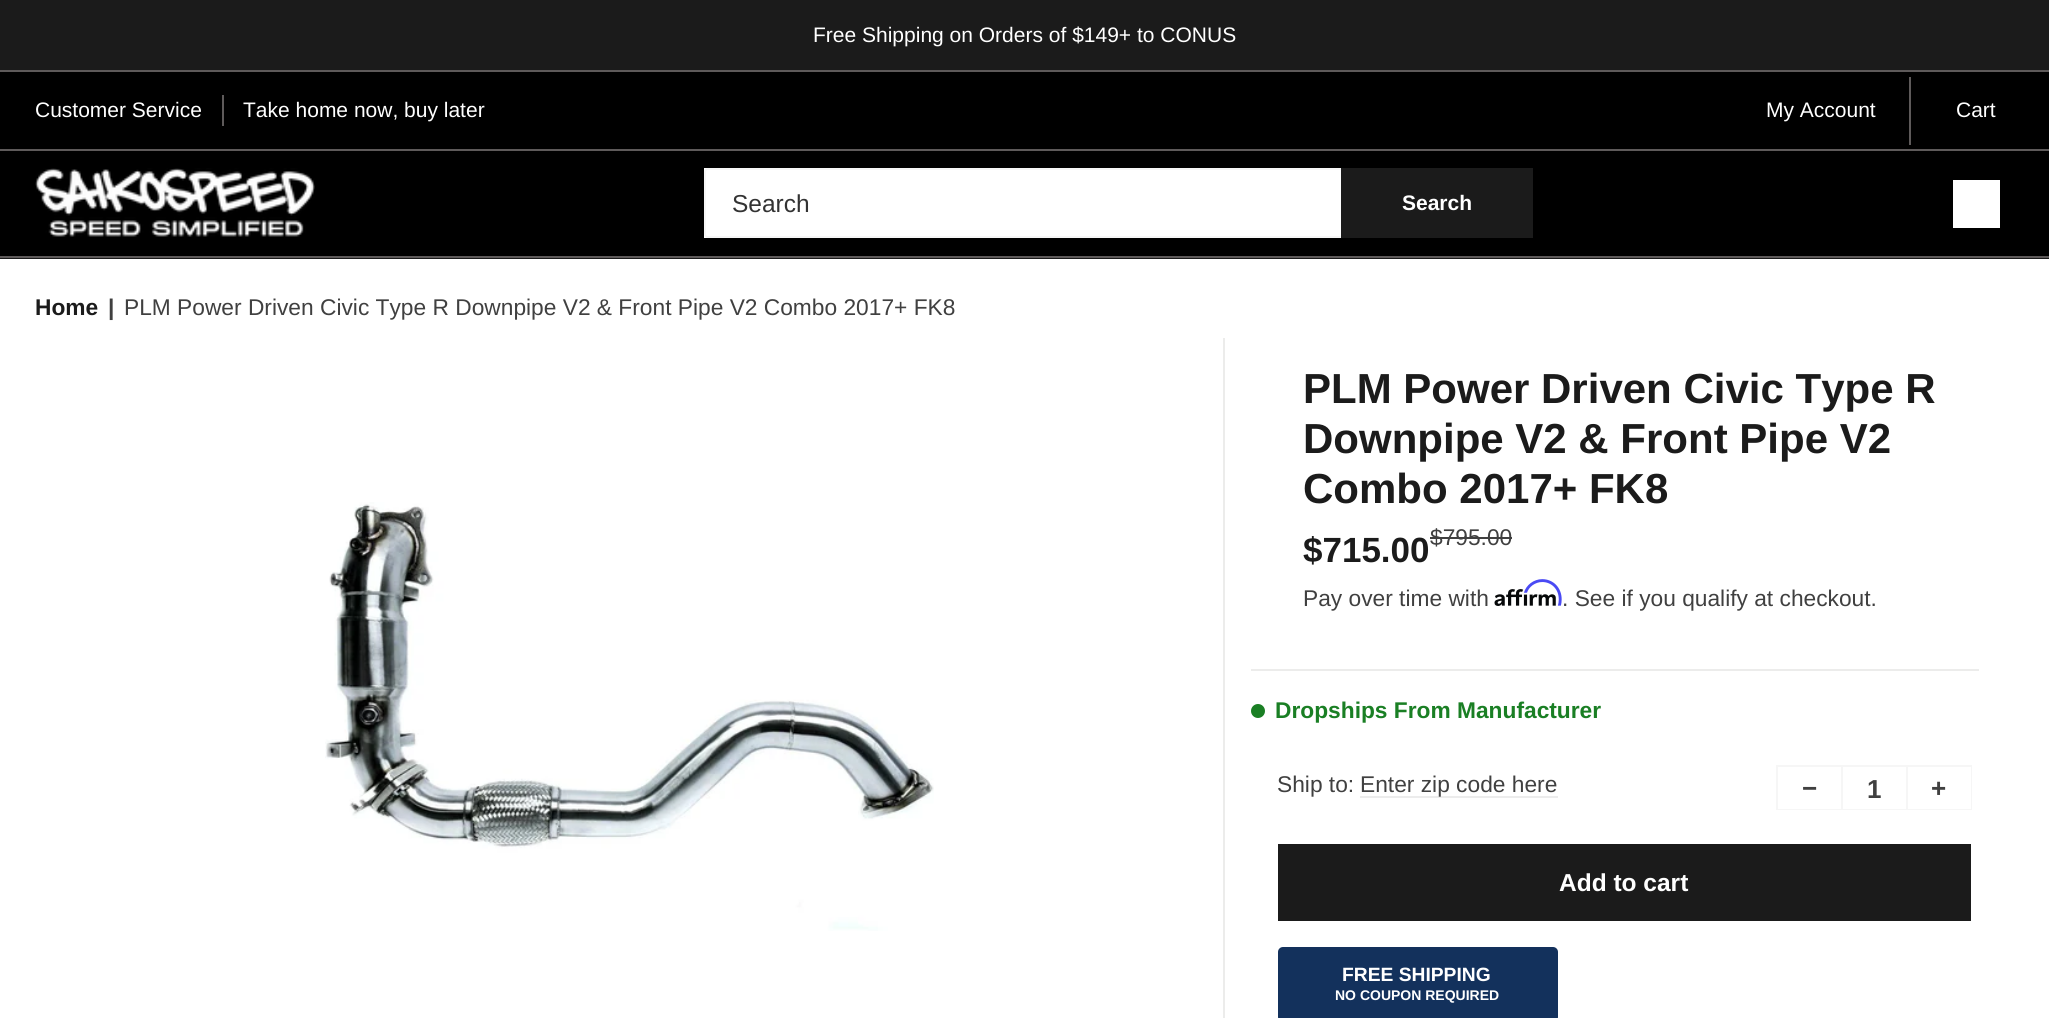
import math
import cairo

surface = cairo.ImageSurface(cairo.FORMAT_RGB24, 2049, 1018)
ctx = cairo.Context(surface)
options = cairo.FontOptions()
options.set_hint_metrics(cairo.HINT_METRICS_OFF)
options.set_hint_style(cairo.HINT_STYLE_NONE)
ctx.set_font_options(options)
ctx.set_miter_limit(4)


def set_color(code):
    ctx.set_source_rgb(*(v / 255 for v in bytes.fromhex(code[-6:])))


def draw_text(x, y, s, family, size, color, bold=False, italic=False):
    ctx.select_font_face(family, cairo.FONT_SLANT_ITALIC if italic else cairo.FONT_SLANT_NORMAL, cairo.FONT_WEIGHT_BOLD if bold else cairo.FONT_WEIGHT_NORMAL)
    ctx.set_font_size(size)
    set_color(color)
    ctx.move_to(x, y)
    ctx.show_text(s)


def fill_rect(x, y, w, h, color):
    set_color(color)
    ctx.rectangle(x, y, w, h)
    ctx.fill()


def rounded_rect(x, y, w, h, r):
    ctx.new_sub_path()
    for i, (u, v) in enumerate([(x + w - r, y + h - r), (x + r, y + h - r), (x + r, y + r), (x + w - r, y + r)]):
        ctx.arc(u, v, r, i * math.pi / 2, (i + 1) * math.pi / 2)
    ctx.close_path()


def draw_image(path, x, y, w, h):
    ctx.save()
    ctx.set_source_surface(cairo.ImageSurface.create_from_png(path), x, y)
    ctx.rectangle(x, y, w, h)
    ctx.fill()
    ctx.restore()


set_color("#ffffff")
ctx.paint()
fill_rect(0, 0, 2049, 70, "#1b1b1b")
draw_text(813, 42, "Free Shipping on Orders of $149+ to CONUS", "Liberation Sans", 21, "#ffffff")
fill_rect(0, 72, 2049, 77, "#000000")
fill_rect(0, 70, 2049, 2, "#5e5a5a")
fill_rect(0, 149, 2049, 2, "#5e5a5a")
fill_rect(222, 95, 2, 31, "#5e5a5a")
draw_text(35, 117, "Customer Service", "Liberation Sans", 21, "#ffffff")
draw_text(243, 117, "Take home now, buy later", "Liberation Sans", 21, "#ffffff")
fill_rect(1909, 77, 2, 68, "#5e5a5a")
draw_text(1766, 117, "My Account", "Liberation Sans", 21, "#ffffff")
draw_text(1956, 117, "Cart", "Liberation Sans", 21, "#ffffff")
fill_rect(0, 151, 2049, 105, "#000000")
fill_rect(0, 258, 2049, 1, "#1a1a1a")
draw_image("assets/img1.png", 35, 168, 280, 69)
fill_rect(704, 168, 637, 70, "#ffffff")
rounded_rect(705, 169, 827, 68, 3)
set_color("#f6f6f6")
ctx.stroke()
draw_text(732, 212, "Search", "Liberation Sans", 24.5, "#333333")
fill_rect(1341, 168, 192, 70, "#1b1b1b")
draw_text(1402, 210, "Search", "Liberation Sans", 21, "#ffffff", bold=True)
fill_rect(1953, 180, 47, 48, "#ffffff")
fill_rect(0, 256, 2049, 2, "#5e5a5a")
draw_text(35, 315, "Home", "Liberation Sans", 22.75, "#1b1b1b", bold=True)
draw_text(108, 315, "|", "Liberation Sans", 22.75, "#404040", bold=True)
draw_text(124, 315, "PLM Power Driven Civic Type R Downpipe V2 & Front Pipe V2 Combo 2017+ FK8", "Liberation Sans", 22.75, "#404040")
fill_rect(1223, 338, 2, 680, "#ececeb")
draw_image("assets/img2.png", 325, 502, 609, 429)
draw_text(1303, 403, "PLM Power Driven Civic Type R", "Liberation Sans", 42, "#1b1b1b", bold=True)
draw_text(1303, 453, "Downpipe V2 & Front Pipe V2", "Liberation Sans", 42, "#1b1b1b", bold=True)
draw_text(1303, 503, "Combo 2017+ FK8", "Liberation Sans", 42, "#1b1b1b", bold=True)
draw_text(1303, 562, "$715.00", "Liberation Sans", 35, "#1b1b1b", bold=True)
draw_text(1430, 545, "$795.00", "Liberation Sans", 22.75, "#404040")
fill_rect(1430, 537, 82, 2, "#404040")
draw_text(1303, 606, "Pay over time with", "Liberation Sans", 22.75, "#404040")
draw_image("assets/img4.png", 1494, 589, 62, 17)
draw_image("assets/img3.png", 1524, 579, 38, 27)
draw_text(1562, 606, ". See if you qualify at checkout.", "Liberation Sans", 22.75, "#404040")
fill_rect(1251, 669, 728, 2, "#ececeb")
set_color("#1a7f24")
ctx.new_path()
ctx.arc(1258, 711, 7, 0, 2 * math.pi)
ctx.fill()
draw_text(1275, 718, "Dropships From Manufacturer", "Liberation Sans", 22.75, "#1a7f24", bold=True)
draw_text(1277, 792, "Ship to:", "Liberation Sans", 22.75, "#404040")
fill_rect(1360, 796, 198, 2, "#ececec")
draw_text(1360, 792, "Enter zip code here", "Liberation Sans", 22.75, "#404040")
ctx.rectangle(1777, 766, 194, 43)
set_color("#f6f6f6")
ctx.stroke()
fill_rect(1778, 767, 193, 42, "#ffffff")
draw_text(1802, 797, "−", "Liberation Sans", 26, "#404040", bold=True)
fill_rect(1906, 767, 2, 42, "#f6f6f6")
fill_rect(1841, 767, 2, 42, "#f6f6f6")
draw_text(1867, 798, "1", "Liberation Sans", 26, "#404040", bold=True)
draw_text(1931, 797, "+", "Liberation Sans", 26, "#404040", bold=True)
fill_rect(1278, 844, 693, 77, "#1b1b1b")
draw_text(1559, 891, "Add to cart", "Liberation Sans", 24.5, "#ffffff", bold=True)
set_color("#13315c")
rounded_rect(1278, 947, 280, 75, 5)
ctx.fill()
draw_text(1342, 981, "FREE SHIPPING", "Liberation Sans", 19.25, "#ffffff", bold=True)
draw_text(1335, 1000, "NO COUPON REQUIRED", "Liberation Sans", 14, "#ffffff", bold=True)
surface.write_to_png("output.png")
